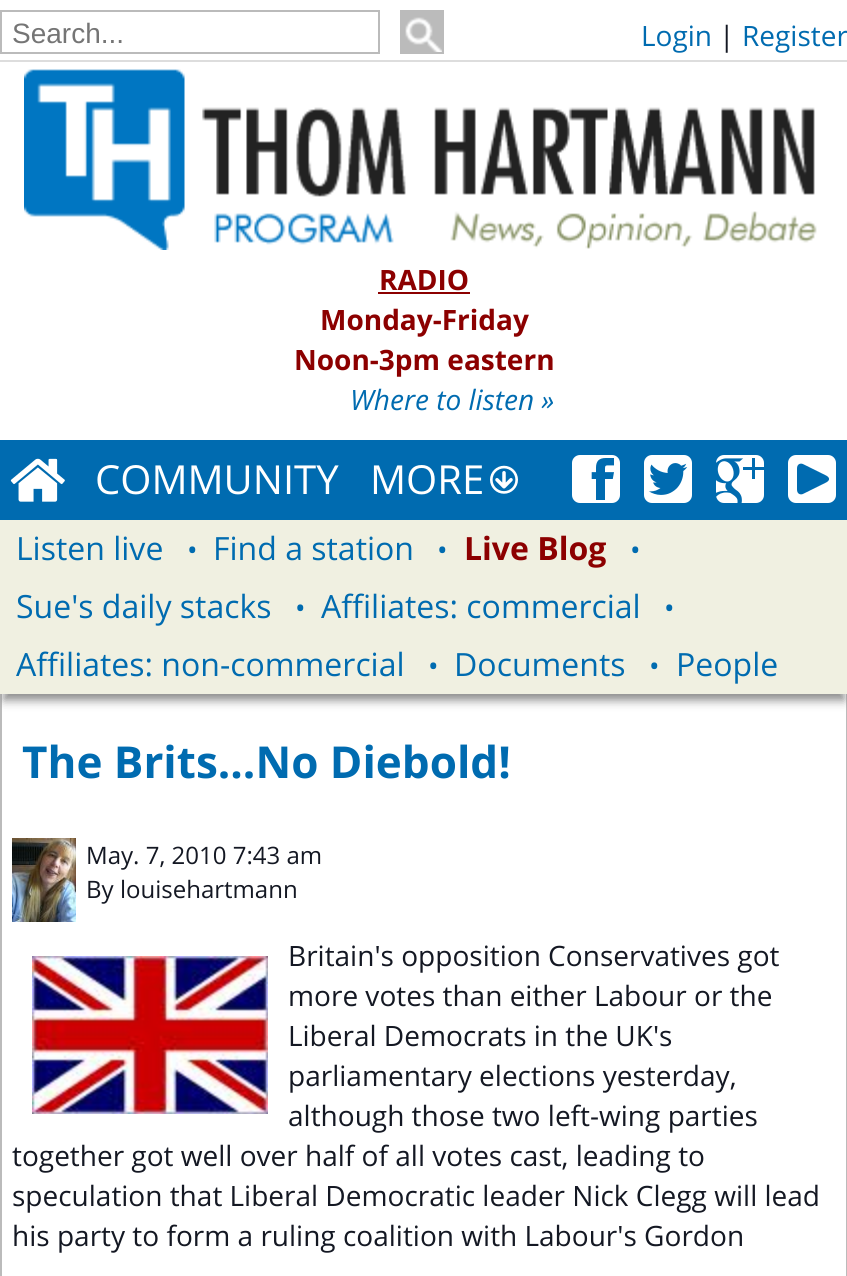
import math
import cairo

surface = cairo.ImageSurface(cairo.FORMAT_RGB24, 847, 1276)
ctx = cairo.Context(surface)
options = cairo.FontOptions()
options.set_hint_metrics(cairo.HINT_METRICS_OFF)
options.set_hint_style(cairo.HINT_STYLE_NONE)
ctx.set_font_options(options)
ctx.set_miter_limit(4)


def set_color(code):
    ctx.set_source_rgb(*(v / 255 for v in bytes.fromhex(code[-6:])))


def draw_text(x, y, s, family, size, color, bold=False, italic=False):
    ctx.select_font_face(family, cairo.FONT_SLANT_ITALIC if italic else cairo.FONT_SLANT_NORMAL, cairo.FONT_WEIGHT_BOLD if bold else cairo.FONT_WEIGHT_NORMAL)
    ctx.set_font_size(size)
    set_color(color)
    ctx.move_to(x, y)
    ctx.show_text(s)


def fill_rect(x, y, w, h, color):
    set_color(color)
    ctx.rectangle(x, y, w, h)
    ctx.fill()


def rounded_rect(x, y, w, h, r):
    ctx.new_sub_path()
    for i, (u, v) in enumerate([(x + w - r, y + h - r), (x + r, y + h - r), (x + r, y + r), (x + w - r, y + r)]):
        ctx.arc(u, v, r, i * math.pi / 2, (i + 1) * math.pi / 2)
    ctx.close_path()


def draw_shadow(x, y, w, h, r, blur, alpha):
    ctx.push_group_with_content(cairo.CONTENT_ALPHA)
    ctx.set_operator(cairo.OPERATOR_SOURCE)
    for i in range(15, -16, -2):
        e = blur * i / 6
        if min(w, h) + 2 * e > 0:
            ctx.set_source_rgba(0, 0, 0, alpha * math.erfc((i - 1) / 8.5) / 2)
            rounded_rect(x - e, y - e, w + 2 * e, h + 2 * e, max(0, min(r + e + blur * .6, min(w, h) / 2 + e)))
            ctx.fill()
    ctx.mask(ctx.pop_group())


def draw_image(path, x, y, w, h):
    ctx.save()
    ctx.set_source_surface(cairo.ImageSurface.create_from_png(path), x, y)
    ctx.rectangle(x, y, w, h)
    ctx.fill()
    ctx.restore()


set_color("#ffffff")
ctx.paint()
fill_rect(0, 60, 847, 2, "#dddddd")
ctx.rectangle(1, 11, 378, 42)
set_color("#bbbbbb")
ctx.stroke()
draw_text(12, 43, "Search...", "Liberation Sans", 28, "#757575")
fill_rect(402, 12, 40, 40, "#bbbbbb")
draw_image("assets/img1.png", 405, 17, 37, 35)
ctx.rectangle(401, 11, 42, 42)
ctx.stroke()
draw_text(641, 46, "Login", "Open Sans", 28, "#006bb0")
draw_text(719, 46, "|", "Open Sans", 28, "#141823")
draw_text(742, 46, "Register", "Open Sans", 28, "#006bb0")
draw_image("assets/img2.png", 24, 69, 793, 181)
draw_text(379, 290, "RADIO", "Open Sans", 28, "#8c0000", bold=True)
fill_rect(378, 292, 92, 2, "#8c0000")
draw_text(320, 330, "Monday-Friday", "Open Sans", 28, "#8c0000", bold=True)
draw_text(294, 370, "Noon-3pm eastern", "Open Sans", 28, "#8c0000", bold=True)
draw_text(350, 410, "Where to listen »", "Open Sans", 28, "#006bb0", italic=True)
fill_rect(846, 694, 1, 582, "#bbbbbb")
fill_rect(0, 694, 2, 582, "#bbbbbb")
set_color("#888888")
draw_shadow(4, 454, 840, 246, 0, 5, 1)
fill_rect(0, 440, 847, 80, "#006bb0")
draw_image("assets/img3.png", 10, 458, 55, 44)
draw_text(95, 494, "COMMUNITY", "Open Sans", 40, "#ffffff")
draw_text(370, 494, "MORE", "Open Sans", 40, "#ffffff")
draw_image("assets/img4.png", 490, 465, 28, 29)
draw_image("assets/img5.png", 572, 455, 48, 48)
draw_image("assets/img6.png", 644, 455, 48, 48)
draw_image("assets/img7.png", 716, 455, 48, 48)
draw_image("assets/img8.png", 788, 455, 48, 48)
fill_rect(0, 520, 847, 174, "#f0f0e1")
draw_text(16, 560, "Listen live", "Open Sans", 32, "#006bb0")
draw_text(187, 560, "•", "Open Sans", 28, "#006bb0")
draw_text(213, 560, "Find a station", "Open Sans", 32, "#006bb0")
draw_text(437, 560, "•", "Open Sans", 28, "#006bb0")
draw_text(464, 560, "Live Blog", "Open Sans", 32, "#8c0000", bold=True)
draw_text(630, 560, "•", "Open Sans", 28, "#006bb0")
draw_text(16, 618, "Sue's daily stacks", "Open Sans", 32, "#006bb0")
draw_text(295, 618, "•", "Open Sans", 28, "#006bb0")
draw_text(321, 618, "Affiliates: commercial", "Open Sans", 32, "#006bb0")
draw_text(664, 618, "•", "Open Sans", 28, "#006bb0")
draw_text(16, 676, "Affiliates: non-commercial", "Open Sans", 32, "#006bb0")
draw_text(649, 676, "•", "Open Sans", 28, "#006bb0")
draw_text(676, 676, "People", "Open Sans", 32, "#006bb0")
draw_text(428, 676, "•", "Open Sans", 28, "#006bb0")
draw_text(454, 676, "Documents", "Open Sans", 32, "#006bb0")
draw_text(22, 778, "The Brits...No Diebold!", "Open Sans", 44, "#006bb0", bold=True)
draw_image("assets/img9.png", 12, 838, 64, 84)
draw_text(86, 864, "May. 7, 2010 7:43 am", "Open Sans", 24, "#141823")
draw_text(86, 898, "By louisehartmann", "Open Sans", 24, "#141823")
draw_image("assets/img10.png", 32, 956, 236, 158)
draw_text(288, 966, "Britain's opposition Conservatives got", "Open Sans", 28, "#141823")
draw_text(288, 1006, "more votes than either Labour or the", "Open Sans", 28, "#141823")
draw_text(288, 1046, "Liberal Democrats in the UK's", "Open Sans", 28, "#141823")
draw_text(288, 1086, "parliamentary elections yesterday,", "Open Sans", 28, "#141823")
draw_text(288, 1126, "although those two left-wing parties", "Open Sans", 28, "#141823")
draw_text(12, 1166, "together got well over half of all votes cast, leading to", "Open Sans", 28, "#141823")
draw_text(12, 1206, "speculation that Liberal Democratic leader Nick Clegg will lead", "Open Sans", 28, "#141823")
draw_text(12, 1246, "his party to form a ruling coalition with Labour's Gordon", "Open Sans", 28, "#141823")
surface.write_to_png("output.png")
